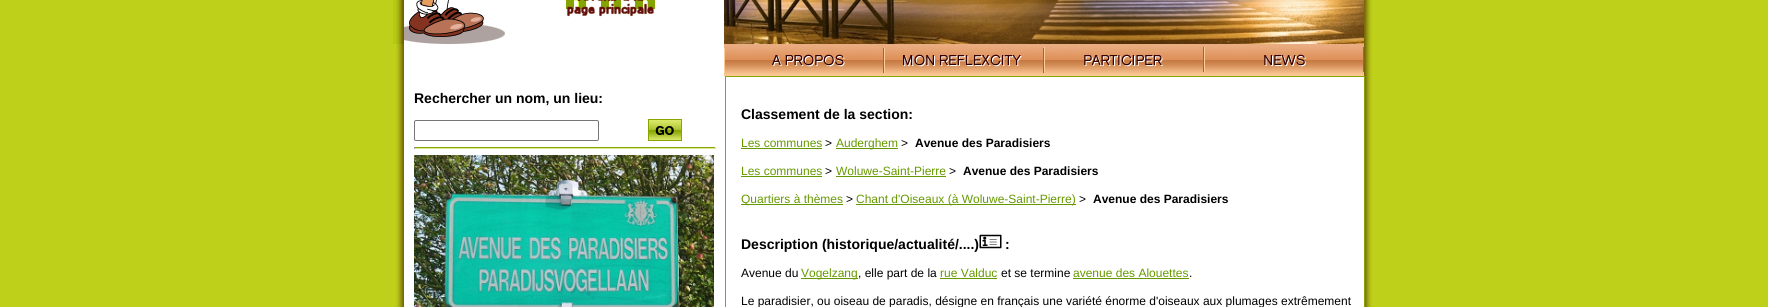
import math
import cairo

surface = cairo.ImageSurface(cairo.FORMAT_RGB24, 1768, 307)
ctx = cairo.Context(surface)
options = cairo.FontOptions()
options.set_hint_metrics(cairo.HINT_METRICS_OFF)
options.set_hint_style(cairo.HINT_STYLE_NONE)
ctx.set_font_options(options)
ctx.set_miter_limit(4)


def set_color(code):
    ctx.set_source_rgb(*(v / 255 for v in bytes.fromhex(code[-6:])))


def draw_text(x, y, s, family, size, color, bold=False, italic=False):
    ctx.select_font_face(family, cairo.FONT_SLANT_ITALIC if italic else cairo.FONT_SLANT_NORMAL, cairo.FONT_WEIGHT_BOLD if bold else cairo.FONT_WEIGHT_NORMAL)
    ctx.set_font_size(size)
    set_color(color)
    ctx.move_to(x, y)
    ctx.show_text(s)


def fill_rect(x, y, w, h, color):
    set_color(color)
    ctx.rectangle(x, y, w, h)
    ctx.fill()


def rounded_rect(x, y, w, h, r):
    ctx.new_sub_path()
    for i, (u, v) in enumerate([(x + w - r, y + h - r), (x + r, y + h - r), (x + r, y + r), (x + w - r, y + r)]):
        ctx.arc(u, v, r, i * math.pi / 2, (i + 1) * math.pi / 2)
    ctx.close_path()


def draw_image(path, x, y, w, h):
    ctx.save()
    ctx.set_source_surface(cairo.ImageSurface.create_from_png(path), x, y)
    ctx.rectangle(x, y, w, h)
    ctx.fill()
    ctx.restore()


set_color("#bed01a")
ctx.paint()
draw_image("assets/img1.png", 393, 0, 331, 44)
draw_image("assets/img2.png", 724, 0, 640, 44)
draw_image("assets/img3.png", 1364, 0, 8, 44)
draw_image("assets/img4.png", 396, 44, 328, 32)
draw_image("assets/img5.png", 724, 44, 160, 32)
draw_image("assets/img6.png", 884, 44, 160, 32)
draw_image("assets/img7.png", 1044, 44, 160, 32)
draw_image("assets/img8.png", 1204, 44, 160, 32)
draw_image("assets/img9.png", 1364, 44, 8, 32)
draw_image("assets/img10.png", 396, 76, 976, 231)
draw_text(414, 103, "Rechercher un nom, un lieu:", "Liberation Sans", 14, "#000000", bold=True)
rounded_rect(414.5, 120.5, 184, 20, 1.5)
set_color("#767676")
ctx.set_line_width(1)
ctx.stroke()
draw_image("assets/img11.png", 648, 119, 34, 22)
fill_rect(414, 147, 302, 1, "#87a602")
fill_rect(715, 147, 1, 2, "#eeeeee")
fill_rect(414, 148, 302, 1, "#d9e997")
fill_rect(414, 147, 1, 2, "#9f9f9f")
draw_image("assets/img12.png", 414, 155, 300, 152)
ctx.rectangle(725.5, 76.5, 639, 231)
set_color("#87a602")
ctx.stroke()
draw_text(741, 119, "Classement de la section:", "Liberation Sans", 14, "#000000", bold=True)
draw_text(741, 147, "Les communes", "Liberation Sans", 12, "#669900")
fill_rect(741, 148, 81, 1, "#669900")
draw_text(825, 147, ">", "Liberation Sans", 12, "#000000")
fill_rect(836, 148, 62, 1, "#669900")
draw_text(836, 147, "Auderghem", "Liberation Sans", 12, "#669900")
draw_text(901, 147, ">", "Liberation Sans", 12, "#000000")
draw_text(915, 147, "Avenue des Paradisiers", "Liberation Sans", 12, "#000000", bold=True)
draw_text(741, 175, "Les communes", "Liberation Sans", 12, "#669900")
fill_rect(741, 176, 81, 1, "#669900")
draw_text(825, 175, ">", "Liberation Sans", 12, "#000000")
draw_text(836, 175, "Woluwe-Saint-Pierre", "Liberation Sans", 12, "#669900")
fill_rect(836, 176, 110, 1, "#669900")
draw_text(949, 175, ">", "Liberation Sans", 12, "#000000")
draw_text(963, 175, "Avenue des Paradisiers", "Liberation Sans", 12, "#000000", bold=True)
fill_rect(741, 204, 102, 1, "#669900")
draw_text(741, 203, "Quartiers à thèmes", "Liberation Sans", 12, "#669900")
draw_text(846, 203, ">", "Liberation Sans", 12, "#000000")
fill_rect(856, 204, 220, 1, "#669900")
draw_text(856, 203, "Chant d'Oiseaux (à Woluwe-Saint-Pierre)", "Liberation Sans", 12, "#669900")
draw_text(1079, 203, ">", "Liberation Sans", 12, "#000000")
draw_text(1093, 203, "Avenue des Paradisiers", "Liberation Sans", 12, "#000000", bold=True)
draw_text(741, 249, "Description (historique/actualité/....)", "Liberation Sans", 14, "#000000", bold=True)
draw_image("assets/img13.png", 979, 234, 23, 15)
draw_text(1005, 249, ":", "Liberation Sans", 14, "#000000", bold=True)
draw_text(741, 277, "Avenue du", "Liberation Sans", 12, "#000000")
fill_rect(801, 278, 57, 1, "#669900")
draw_text(801, 277, "Vogelzang", "Liberation Sans", 12, "#669900")
draw_text(858, 277, ", elle part de la", "Liberation Sans", 12, "#000000")
draw_text(940, 277, "rue Valduc", "Liberation Sans", 12, "#669900")
fill_rect(940, 278, 57, 1, "#669900")
draw_text(1001, 277, "et se termine", "Liberation Sans", 12, "#000000")
draw_text(1073, 277, "avenue des Alouettes", "Liberation Sans", 12, "#669900")
fill_rect(1073, 278, 116, 1, "#669900")
draw_text(1189, 277, ".", "Liberation Sans", 12, "#000000")
draw_text(741, 305, "Le paradisier, ou oiseau de paradis, désigne en français une variété énorme d'oiseaux aux plumages extrêmement", "Liberation Sans", 12, "#000000")
surface.write_to_png("output.png")
